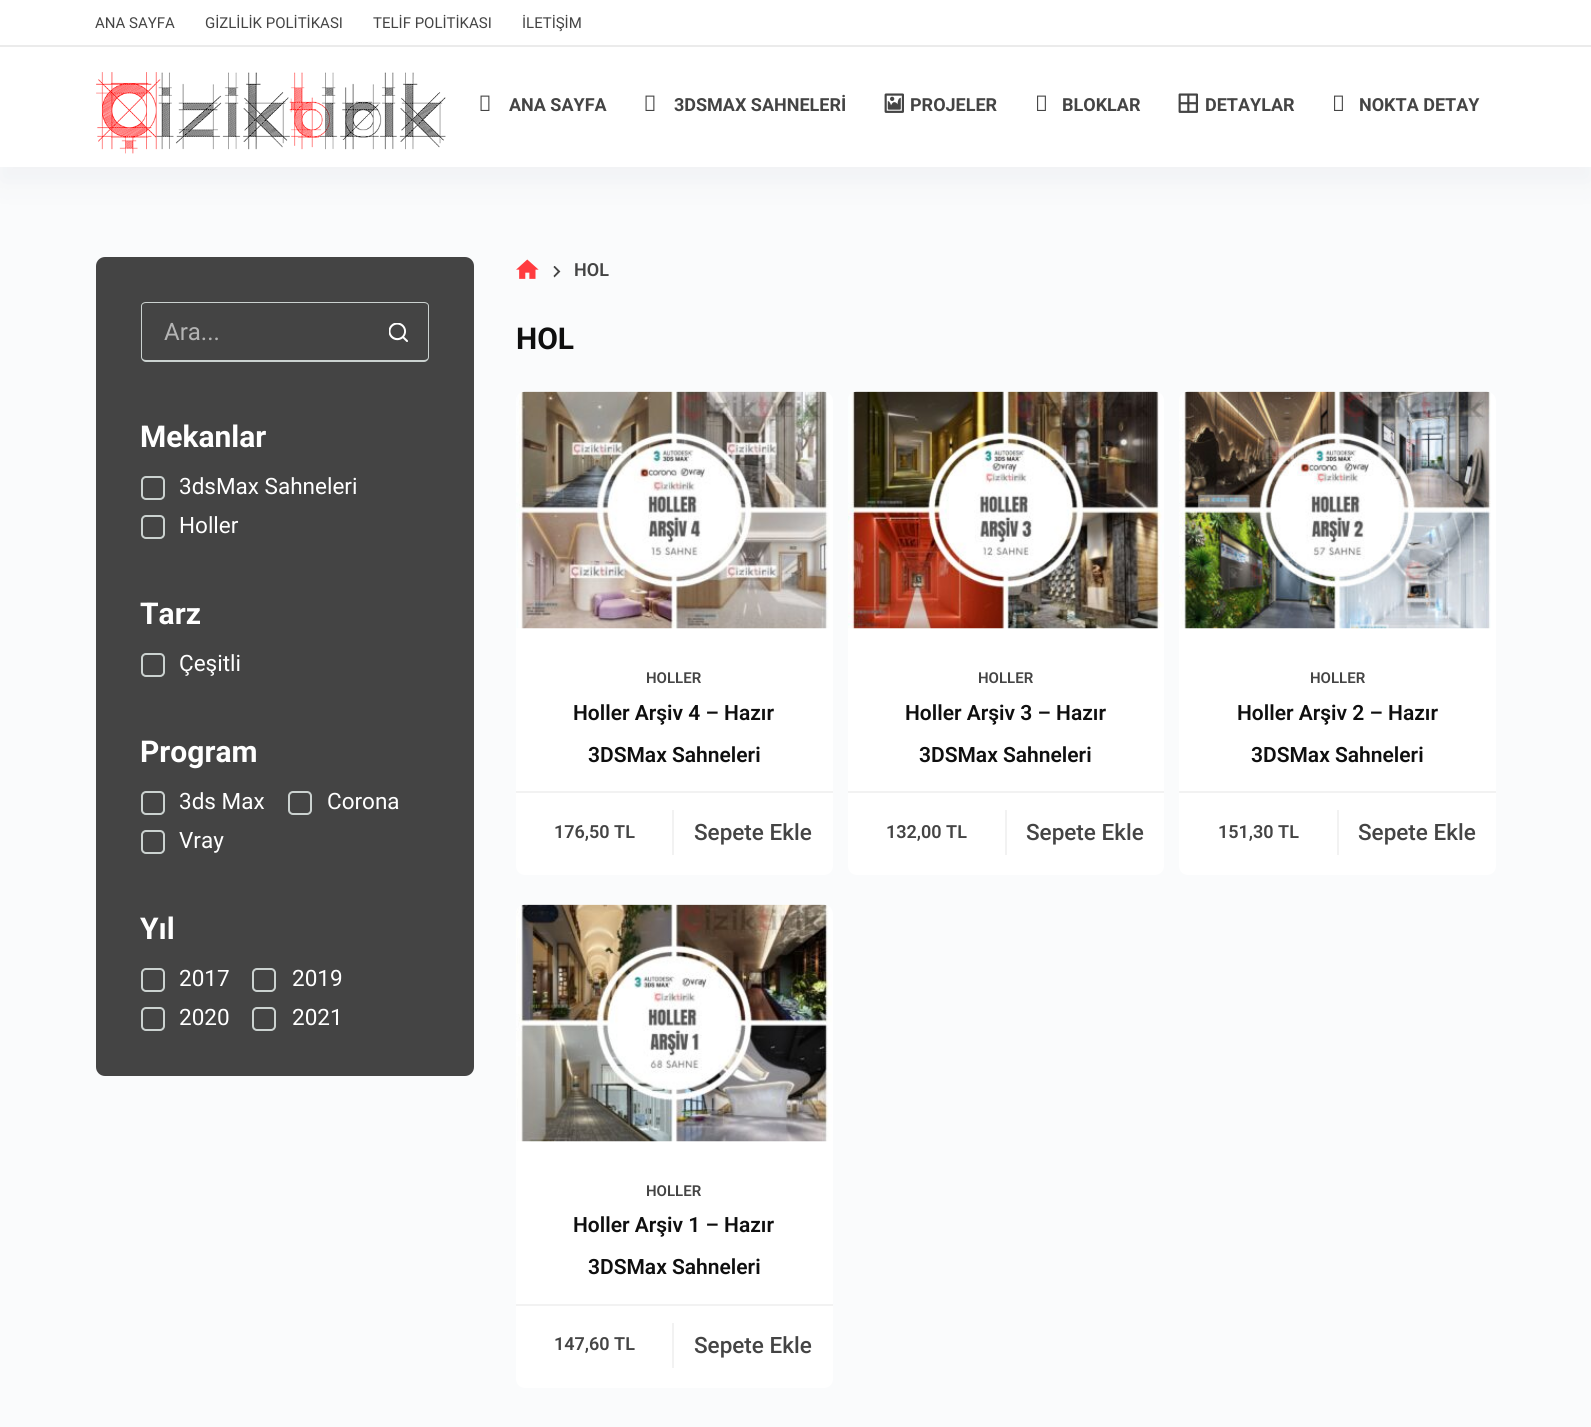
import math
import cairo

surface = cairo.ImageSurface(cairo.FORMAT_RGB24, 1591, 1427)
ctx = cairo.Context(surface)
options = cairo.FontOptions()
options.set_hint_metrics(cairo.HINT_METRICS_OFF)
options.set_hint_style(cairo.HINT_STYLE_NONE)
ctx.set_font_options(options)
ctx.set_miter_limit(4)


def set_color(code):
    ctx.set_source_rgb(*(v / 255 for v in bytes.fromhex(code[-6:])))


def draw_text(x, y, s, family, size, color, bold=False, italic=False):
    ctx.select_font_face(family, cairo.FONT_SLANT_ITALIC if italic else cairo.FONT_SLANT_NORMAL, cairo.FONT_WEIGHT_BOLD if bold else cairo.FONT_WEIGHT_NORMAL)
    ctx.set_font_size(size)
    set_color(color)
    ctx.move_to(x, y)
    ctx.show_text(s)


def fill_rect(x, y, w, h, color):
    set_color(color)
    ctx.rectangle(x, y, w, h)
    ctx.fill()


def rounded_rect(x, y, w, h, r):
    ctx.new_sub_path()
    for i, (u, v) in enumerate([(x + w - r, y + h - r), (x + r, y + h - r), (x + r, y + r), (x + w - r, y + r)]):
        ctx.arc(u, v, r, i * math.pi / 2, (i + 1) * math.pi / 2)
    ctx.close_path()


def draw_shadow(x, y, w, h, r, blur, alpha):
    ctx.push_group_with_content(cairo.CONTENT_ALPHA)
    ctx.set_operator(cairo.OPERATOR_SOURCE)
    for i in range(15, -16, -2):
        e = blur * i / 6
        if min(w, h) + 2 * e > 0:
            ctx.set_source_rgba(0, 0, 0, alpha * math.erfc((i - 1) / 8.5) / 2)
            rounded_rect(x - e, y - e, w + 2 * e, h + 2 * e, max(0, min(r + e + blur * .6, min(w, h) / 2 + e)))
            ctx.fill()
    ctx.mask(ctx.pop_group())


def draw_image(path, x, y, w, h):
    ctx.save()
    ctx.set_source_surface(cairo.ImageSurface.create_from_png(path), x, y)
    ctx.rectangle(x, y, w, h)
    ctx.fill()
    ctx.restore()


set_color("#fafbfc")
ctx.paint()
set_color("#2c3e50")
draw_shadow(0, 62, 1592, 120, 0, 15, 0.05)
fill_rect(0, 0, 1591, 45, "#ffffff")
fill_rect(0, 45, 1591, 2, "#ebebeb")
draw_text(95, 28, "ANA SAYFA", "Roboto", 15, "#444444")
draw_text(205, 28, "GİZLİLİK POLİTİKASI", "Roboto", 15, "#444444")
draw_text(373, 28, "TELİF POLİTİKASI", "Roboto", 15, "#444444")
draw_text(522, 28, "İLETİŞİM", "Roboto", 15, "#444444")
fill_rect(0, 47, 1591, 120, "#ffffff")
draw_image("assets/img1.png", 96, 72, 350, 82)
draw_image("assets/img2.png", 480, 95, 10, 16)
draw_text(509, 111, "ANA SAYFA", "Roboto", 18, "#444444", bold=True)
draw_image("assets/img2.png", 645, 95, 10, 16)
draw_text(674, 111, "3DSMAX SAHNELERİ", "Roboto", 18, "#444444", bold=True)
draw_image("assets/img3.png", 884, 93, 20, 20)
draw_text(910, 111, "PROJELER", "Roboto", 18, "#444444", bold=True)
draw_image("assets/img4.png", 1037, 95, 9, 16)
draw_text(1062, 111, "BLOKLAR", "Roboto", 18, "#444444", bold=True)
draw_image("assets/img5.png", 1178, 93, 20, 20)
draw_text(1205, 111, "DETAYLAR", "Roboto", 18, "#444444", bold=True)
draw_image("assets/img4.png", 1334, 95, 9, 16)
draw_text(1359, 111, "NOKTA DETAY", "Roboto", 18, "#444444", bold=True)
rounded_rect(96, 257, 378, 819, 9)
ctx.fill()
set_color("#cbd2d0")
ctx.set_fill_rule(cairo.FILL_RULE_EVEN_ODD)
ctx.new_path()
ctx.move_to(146, 302)
ctx.line_to(369, 302)
ctx.line_to(369, 362)
ctx.line_to(146, 362)
ctx.curve_to(143, 362, 141, 359, 141, 357)
ctx.line_to(141, 306)
ctx.curve_to(141, 304, 143, 302, 146, 302)
ctx.close_path()
ctx.move_to(146, 303)
ctx.line_to(369, 303)
ctx.line_to(369, 360)
ctx.line_to(146, 360)
ctx.curve_to(144, 360, 142, 359, 142, 357)
ctx.line_to(142, 306)
ctx.curve_to(142, 304, 144, 303, 146, 303)
ctx.close_path()
ctx.fill()
draw_text(164, 340, "Ara...", "Roboto", 24, "#b4b4b4")
set_color("#cbd2d0")
ctx.new_path()
ctx.move_to(369, 302)
ctx.line_to(424, 302)
ctx.curve_to(427, 302, 429, 304, 429, 306)
ctx.line_to(429, 357)
ctx.curve_to(429, 359, 427, 362, 424, 362)
ctx.line_to(369, 362)
ctx.close_path()
ctx.move_to(369, 303)
ctx.line_to(424, 303)
ctx.curve_to(426, 303, 428, 304, 428, 306)
ctx.line_to(428, 357)
ctx.curve_to(428, 359, 426, 360, 424, 360)
ctx.line_to(369, 360)
ctx.close_path()
ctx.fill()
draw_image("assets/img6.png", 389, 323, 19, 19)
draw_text(140, 447, "Mekanlar", "Roboto", 30, "#ffffff", bold=True)
rounded_rect(142, 477, 22, 22, 4)
set_color("#cbd2d0")
ctx.stroke()
draw_text(179, 494, "3dsMax Sahneleri", "Roboto", 22.5, "#ffffff")
rounded_rect(142, 516, 22, 22, 4)
set_color("#cbd2d0")
ctx.stroke()
draw_text(179, 533, "Holler", "Roboto", 22.5, "#ffffff")
draw_text(140, 624, "Tarz", "Roboto", 30, "#ffffff", bold=True)
rounded_rect(142, 654, 22, 22, 4)
set_color("#cbd2d0")
ctx.stroke()
draw_text(179, 671, "Çeşitli", "Roboto", 22.5, "#ffffff")
draw_text(140, 762, "Program", "Roboto", 30, "#ffffff", bold=True)
rounded_rect(142, 792, 22, 22, 4)
set_color("#cbd2d0")
ctx.stroke()
draw_text(179, 809, "3ds Max", "Roboto", 22.5, "#ffffff")
rounded_rect(289, 792, 22, 22, 4)
set_color("#cbd2d0")
ctx.stroke()
draw_text(327, 809, "Corona", "Roboto", 22.5, "#ffffff")
rounded_rect(142, 831, 22, 22, 4)
set_color("#cbd2d0")
ctx.stroke()
draw_text(179, 848, "Vray", "Roboto", 22.5, "#ffffff")
draw_text(140, 939, "Yıl", "Roboto", 30, "#ffffff", bold=True)
rounded_rect(142, 969, 22, 22, 4)
set_color("#cbd2d0")
ctx.stroke()
draw_text(179, 986, "2017", "Roboto", 22.5, "#ffffff")
rounded_rect(253, 969, 22, 22, 4)
set_color("#cbd2d0")
ctx.stroke()
draw_text(292, 986, "2019", "Roboto", 22.5, "#ffffff")
rounded_rect(142, 1008, 22, 22, 4)
set_color("#cbd2d0")
ctx.stroke()
draw_text(179, 1025, "2020", "Roboto", 22.5, "#ffffff")
rounded_rect(253, 1008, 22, 22, 4)
set_color("#cbd2d0")
ctx.stroke()
draw_text(292, 1025, "2021", "Roboto", 22.5, "#ffffff")
draw_image("assets/img7.png", 516, 259, 23, 20)
draw_image("assets/img8.png", 553, 266, 8, 12)
draw_text(574, 276, "HOL", "Roboto SemiBold", 18, "#444444")
draw_text(516, 349, "HOL", "Roboto", 30, "#0f0f0f", bold=True)
set_color("#ffffff")
rounded_rect(516, 392, 317, 483, 9)
ctx.fill()
draw_image("assets/img9.png", 516, 391, 314, 238)
draw_text(646, 683, "HOLLER", "Roboto SemiBold", 15, "#444444")
draw_text(573, 720, "Holler Arşiv 4 – Hazır", "Roboto SemiBold", 21, "#0f0f0f")
draw_text(588, 762, "3DSMax Sahneleri", "Roboto SemiBold", 21, "#0f0f0f")
fill_rect(516, 791, 317, 2, "#f2f2f2")
draw_text(554, 838, "176,50 TL", "Roboto SemiBold", 18, "#444444")
fill_rect(672, 810, 2, 45, "#f2f2f2")
draw_text(694, 840, "Sepete Ekle", "Roboto Medium", 22.5, "#444444")
set_color("#ffffff")
rounded_rect(848, 392, 316, 483, 9)
ctx.fill()
draw_image("assets/img10.png", 848, 391, 316, 238)
draw_text(978, 683, "HOLLER", "Roboto SemiBold", 15, "#444444")
draw_text(905, 720, "Holler Arşiv 3 – Hazır", "Roboto SemiBold", 21, "#0f0f0f")
draw_text(919, 762, "3DSMax Sahneleri", "Roboto SemiBold", 21, "#0f0f0f")
fill_rect(848, 791, 316, 2, "#f2f2f2")
draw_text(886, 838, "132,00 TL", "Roboto SemiBold", 18, "#444444")
fill_rect(1005, 810, 2, 45, "#f2f2f2")
draw_text(1026, 840, "Sepete Ekle", "Roboto Medium", 22.5, "#444444")
set_color("#ffffff")
rounded_rect(1179, 392, 317, 483, 9)
ctx.fill()
draw_image("assets/img11.png", 1179, 391, 312, 238)
draw_text(1310, 683, "HOLLER", "Roboto SemiBold", 15, "#444444")
draw_text(1237, 720, "Holler Arşiv 2 – Hazır", "Roboto SemiBold", 21, "#0f0f0f")
draw_text(1251, 762, "3DSMax Sahneleri", "Roboto SemiBold", 21, "#0f0f0f")
fill_rect(1179, 791, 317, 2, "#f2f2f2")
draw_text(1218, 838, "151,30 TL", "Roboto SemiBold", 18, "#444444")
fill_rect(1337, 810, 2, 45, "#f2f2f2")
draw_text(1358, 840, "Sepete Ekle", "Roboto Medium", 22.5, "#444444")
set_color("#ffffff")
rounded_rect(516, 905, 317, 483, 9)
ctx.fill()
draw_image("assets/img12.png", 516, 904, 316, 238)
draw_text(646, 1196, "HOLLER", "Roboto SemiBold", 15, "#444444")
draw_text(573, 1232, "Holler Arşiv 1 – Hazır", "Roboto SemiBold", 21, "#0f0f0f")
draw_text(588, 1274, "3DSMax Sahneleri", "Roboto SemiBold", 21, "#0f0f0f")
fill_rect(516, 1304, 317, 2, "#f2f2f2")
draw_text(554, 1350, "147,60 TL", "Roboto SemiBold", 18, "#444444")
fill_rect(672, 1323, 2, 45, "#f2f2f2")
draw_text(694, 1353, "Sepete Ekle", "Roboto Medium", 22.5, "#444444")
surface.write_to_png("output.png")
